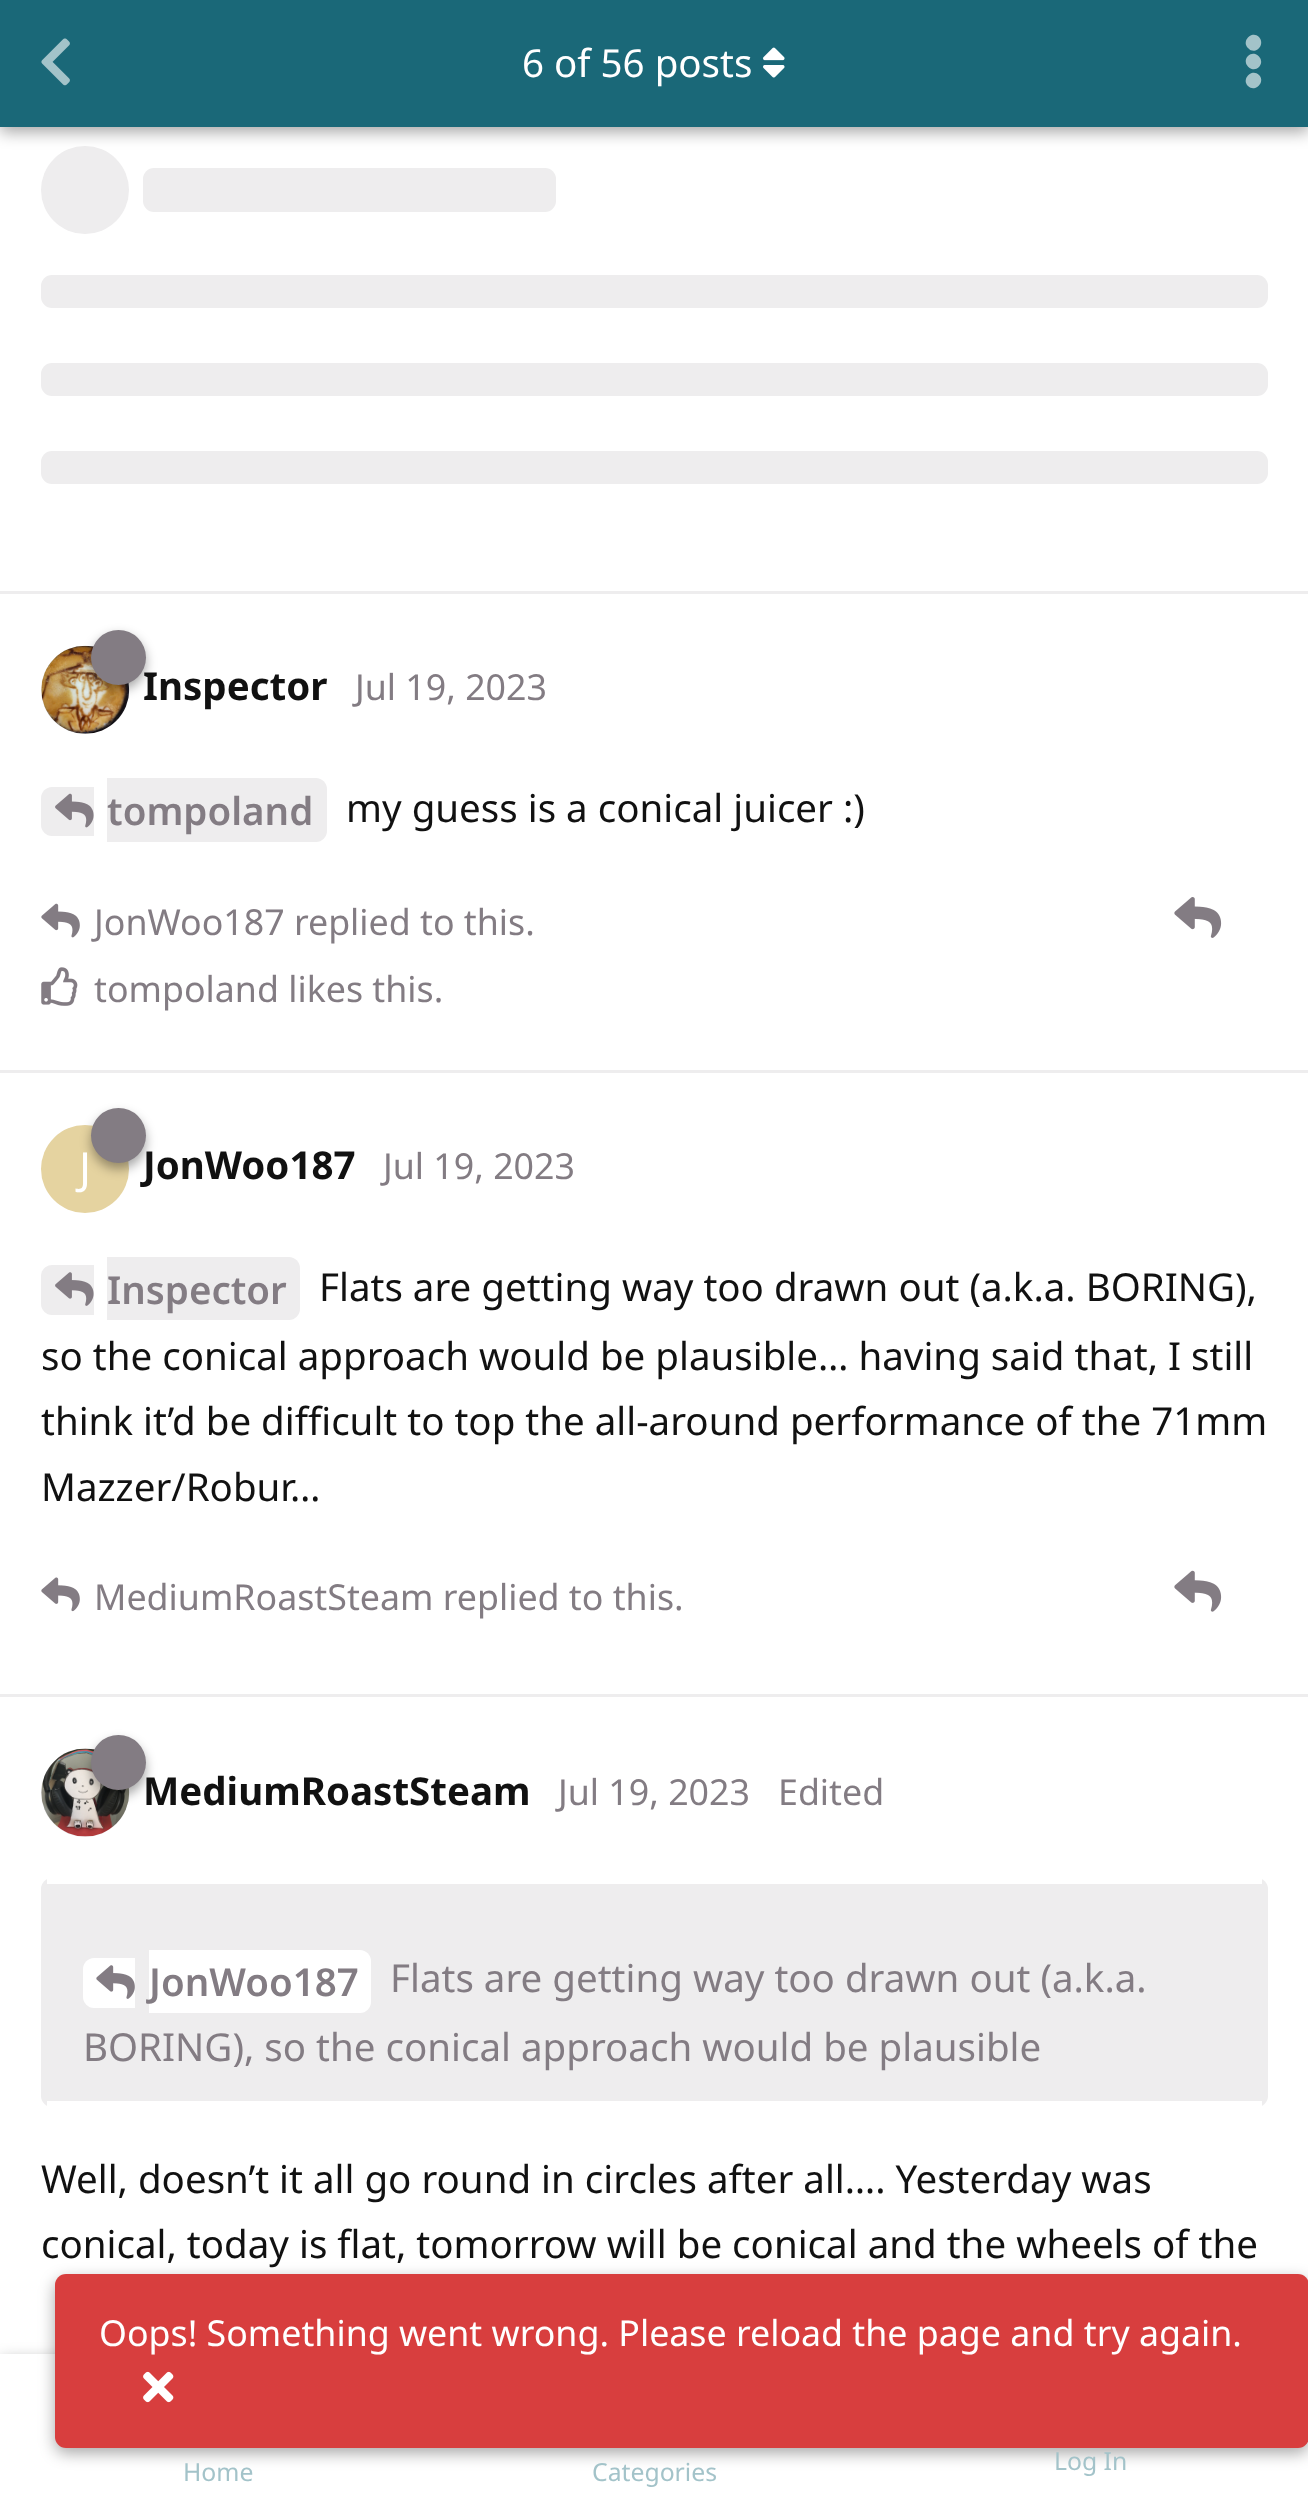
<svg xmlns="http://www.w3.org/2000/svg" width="1308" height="2501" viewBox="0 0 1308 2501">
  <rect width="100%" height="100%" fill="#fff"/>
  <circle cx="85" cy="190" r="44" fill="#eeedee"/>
  <path d="M0 6h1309v126H0z" fill="#00000059" filter="blur(8px)"/>
  <path d="M0 0h1308v127H0z" fill="#1a6878"/>
  <image x="41" y="38" width="29" height="48" href="img/1.png"/>
  <image x="763" y="47" width="22" height="31" href="img/2.png"/>
  <path d="M1248 56C1255 49 1266 60 1259 67C1252 74 1241 63 1248 56ZM1248 48C1241 41 1252 30 1259 37C1266 45 1255 56 1248 48ZM1248 86C1241 79 1252 68 1259 75C1266 82 1255 93 1248 86Z" fill="#a3c3c9"/>
  <path d="M0 591h1308v3H0z" fill="#eeedee"/>
  <rect x="143" y="168" width="413" height="44" rx="11" fill="#eeedee"/>
  <rect x="41" y="275" width="1227" height="33" rx="11" fill="#eeedee"/>
  <rect x="41" y="363" width="1227" height="33" rx="11" fill="#eeedee"/>
  <rect x="41" y="451" width="1227" height="33" rx="11" fill="#eeedee"/>
  <path d="M0 1070h1308v3H0z" fill="#eeedee"/>
  <circle cx="85" cy="690" r="44" fill="#eeedee"/>
  <image x="41" y="645" width="89" height="89" href="img/3.png"/>
  <rect x="91" y="635" width="55" height="55" rx="27.5" fill="#00000059" filter="blur(5.5px)"/>
  <path d="M52 787H94V836H52C46 836 41 831 41 825V798C41 792 46 787 52 787Z" fill="#eeedee"/>
  <path d="M107 778H316C322 778 327 783 327 789V831C327 837 322 842 316 842H107Z" fill="#eeedee"/>
  <image x="55" y="793" width="39" height="35" href="img/4.png"/>
  <image x="41" y="903" width="39" height="35" href="img/5.png"/>
  <image x="41" y="967" width="37" height="39" href="img/6.png"/>
  <image x="1174" y="897" width="48" height="41" href="img/7.png"/>
  <path d="M0 1694h1308v3H0z" fill="#eeedee"/>
  <circle cx="85" cy="1169" r="44" fill="#e5d3a0"/>
  <rect x="91" y="1114" width="55" height="55" rx="27.5" fill="#00000059" filter="blur(5.5px)"/>
  <path d="M52 1265H94V1315H52C46 1315 41 1310 41 1304V1276C41 1270 46 1265 52 1265Z" fill="#eeedee"/>
  <path d="M107 1257H289C295 1257 300 1262 300 1268V1309C300 1315 295 1320 289 1320H107Z" fill="#eeedee"/>
  <image x="55" y="1272" width="39" height="34" href="img/8.png"/>
  <image x="41" y="1577" width="39" height="35" href="img/9.png"/>
  <image x="1174" y="1570" width="48" height="42" href="img/10.png"/>
  <circle cx="85" cy="1793" r="44" fill="#eeedee"/>
  <image x="41" y="1748" width="89" height="89" href="img/11.png"/>
  <rect x="91" y="1741" width="55" height="55" rx="27.5" fill="#00000059" filter="blur(5.5px)"/>
  <circle cx="118.5" cy="1762.5" r="27.5" fill="#837c83"/>
  <rect x="41" y="1878" width="1227" height="229" rx="11" fill="#eeedee"/>
  <path d="M47 1878h1215v6H47z" fill="#fff"/>
  <path d="M47 2101h1215v6H47z" fill="#fff"/>
  <path d="M94 1958H135V2008H94C88 2008 83 2003 83 1997V1969C83 1963 88 1958 94 1958Z" fill="#fff"/>
  <path d="M149 1950H360C366 1950 371 1955 371 1961V2002C371 2008 366 2013 360 2013H149Z" fill="#fff"/>
  <image x="96" y="1965" width="39" height="34" href="img/12.png"/>
  <path d="M0 2360h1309v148H0z" fill="#00000059" filter="blur(8px)"/>
  <path d="M0 2354h1308v147H0z" fill="#fff"/>
  <rect x="55" y="2280" width="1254" height="173" rx="11" fill="#00000059" filter="blur(8px)"/>
  <rect x="55" y="2274" width="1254" height="174" rx="11" fill="#d83e3e"/>
  <image x="143" y="2371" width="31" height="32" href="img/13.png"/>
  <text x="522" y="77" font-family="Noto Sans" font-size="38.5" fill="#fff">6 of 56 posts</text>
  <text x="143" y="700" font-family="Noto Sans" font-size="38.5" font-weight="bold" fill="#111">Inspector</text>
  <circle cx="118.5" cy="657.5" r="27.5" fill="#837c83"/>
  <text x="355" y="700" font-family="Noto Sans" font-size="35.75" fill="#837c83">Jul 19, 2023</text>
  <text x="107" y="825" font-family="Noto Sans" font-size="38.5" font-weight="600" fill="#837c83">tompoland</text>
  <text x="346" y="822" font-family="Noto Sans" font-size="38.5" fill="#111">my guess is a conical juicer :)</text>
  <g font-family="Noto Sans" font-size="35.75" fill="#837c83">
    <text x="94" y="935">JonWoo187 replied to this.</text>
    <text x="94" y="1002">tompoland likes this.</text>
  </g>
  <text x="79" y="1184" font-family="Noto Sans" font-size="44" fill="#fff">J</text>
  <text x="143" y="1179" font-family="Noto Sans" font-size="38.5" font-weight="bold" fill="#111">JonWoo187</text>
  <circle cx="118.5" cy="1135.5" r="27.5" fill="#837c83"/>
  <text x="383" y="1179" font-family="Noto Sans" font-size="35.75" fill="#837c83">Jul 19, 2023</text>
  <text x="107" y="1304" font-family="Noto Sans" font-size="38.5" font-weight="600" fill="#837c83">Inspector</text>
  <g font-family="Noto Sans" font-size="38.5" fill="#111">
    <text x="319" y="1301">Flats are getting way too drawn out (a.k.a. BORING),</text>
    <text x="41" y="1370">so the conical approach would be plausible… having said that, I still</text>
    <text x="41" y="1435">think it’d be difficult to top the all-around performance of the 71mm</text>
    <text x="41" y="1501">Mazzer/Robur…</text>
  </g>
  <text x="94" y="1610" font-family="Noto Sans" font-size="35.75" fill="#837c83">MediumRoastSteam replied to this.</text>
  <text x="143" y="1805" font-family="Noto Sans" font-size="38.5" font-weight="bold" fill="#111">MediumRoastSteam</text>
  <g font-family="Noto Sans" font-size="35.75" fill="#837c83">
    <text x="558" y="1805">Jul 19, 2023</text>
    <text x="778" y="1805">Edited</text>
  </g>
  <text x="149" y="1996" font-family="Noto Sans" font-size="38.5" font-weight="600" fill="#837c83">JonWoo187</text>
  <g font-family="Noto Sans" font-size="38.5" fill="#837c83">
    <text x="390" y="1992">Flats are getting way too drawn out (a.k.a.</text>
    <text x="83" y="2061">BORING), so the conical approach would be plausible</text>
  </g>
  <g font-family="Noto Sans" font-size="38.5" fill="#111">
    <text x="41" y="2193">Well, doesn’t it all go round in circles after all…. Yesterday was</text>
    <text x="41" y="2258">conical, today is flat, tomorrow will be conical and the wheels of the</text>
  </g>
  <text x="99" y="2346" font-family="Noto Sans" font-size="35.75" fill="#fff">Oops! Something went wrong. Please reload the page and try again.</text>
  <g font-family="Noto Sans" font-size="24.75" fill="#a3c3c9">
    <text x="183" y="2481">Home</text>
    <text x="592" y="2481">Categories</text>
    <text x="1054" y="2470">Log In</text>
  </g>
</svg>
